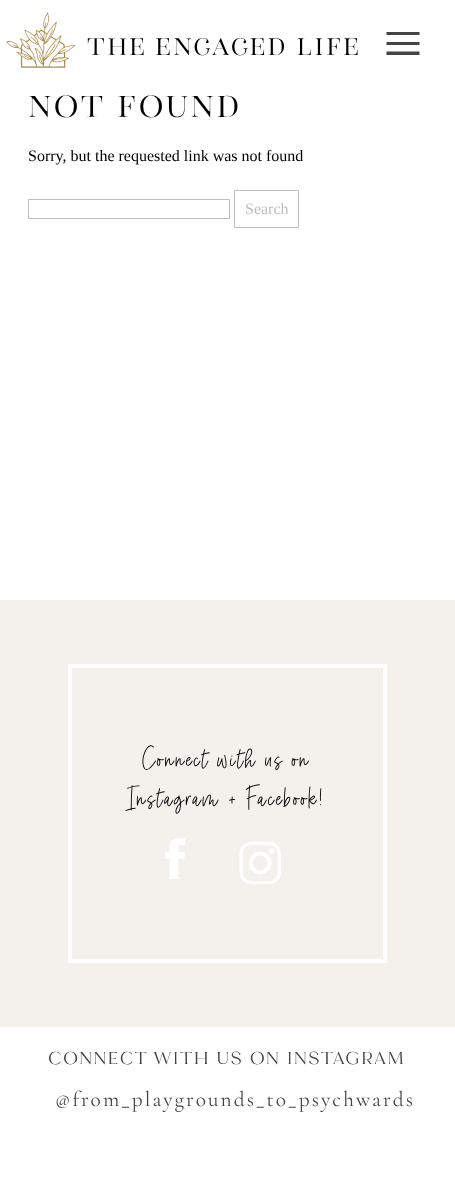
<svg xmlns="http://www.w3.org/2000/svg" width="455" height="1187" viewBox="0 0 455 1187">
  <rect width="100%" height="100%" fill="#fff"/>
  <image x="6" y="12" width="70" height="56" href="img/1.png"/>
  <path d="M386.5 42H419.5V45H386.5ZM386.5 32H419.5V35H386.5ZM386.5 51.5H419.5V55H386.5Z" fill="#444"/>
  <path d="M28.5 199.5h201v19H28.5z" fill="none" stroke="#bdbdbd"/>
  <path d="M234.5 190.5h64v37H234.5z" fill="none" stroke="#bebebe"/>
  <path d="M0 600h455v427H0z" fill="#f4f1ed"/>
  <path d="M70 666h315v295H70z" fill="none" stroke="#fff" stroke-width="4"/>
  <image x="164" y="838" width="21" height="41" href="img/2.png"/>
  <image x="239" y="841" width="42" height="43" href="img/3.png"/>
  <text x="87" y="55" font-family="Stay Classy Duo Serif" font-size="28.5" letter-spacing="2.8" fill="#000">THE ENGAGED LIFE</text>
  <text x="28" y="117" font-family="Stay Classy Duo Serif" font-size="36" letter-spacing="3.5" fill="#000">Not Found</text>
  <text x="28" y="161" font-family="Liberation Serif" font-size="16" fill="#000">Sorry, but the requested link was not found</text>
  <text x="245" y="214" font-family="Liberation Serif" font-size="16" fill="#bebebe">Search</text>
  <g font-family="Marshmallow" font-size="21.3" letter-spacing="2.1" fill="#000">
    <text x="142" y="765">Connect with us on</text>
    <text x="128" y="804">Instagram + Facebook!</text>
  </g>
  <text x="48" y="1064" font-family="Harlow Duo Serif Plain" font-size="19.9" letter-spacing="2" fill="#444">CONNECT WITH US ON INSTAGRAM</text>
  <text x="55" y="1106" font-family="Cormorant Garamond" font-size="21.3" font-weight="300" letter-spacing="2.1" fill="#444">@from_playgrounds_to_psychwards</text>
</svg>
